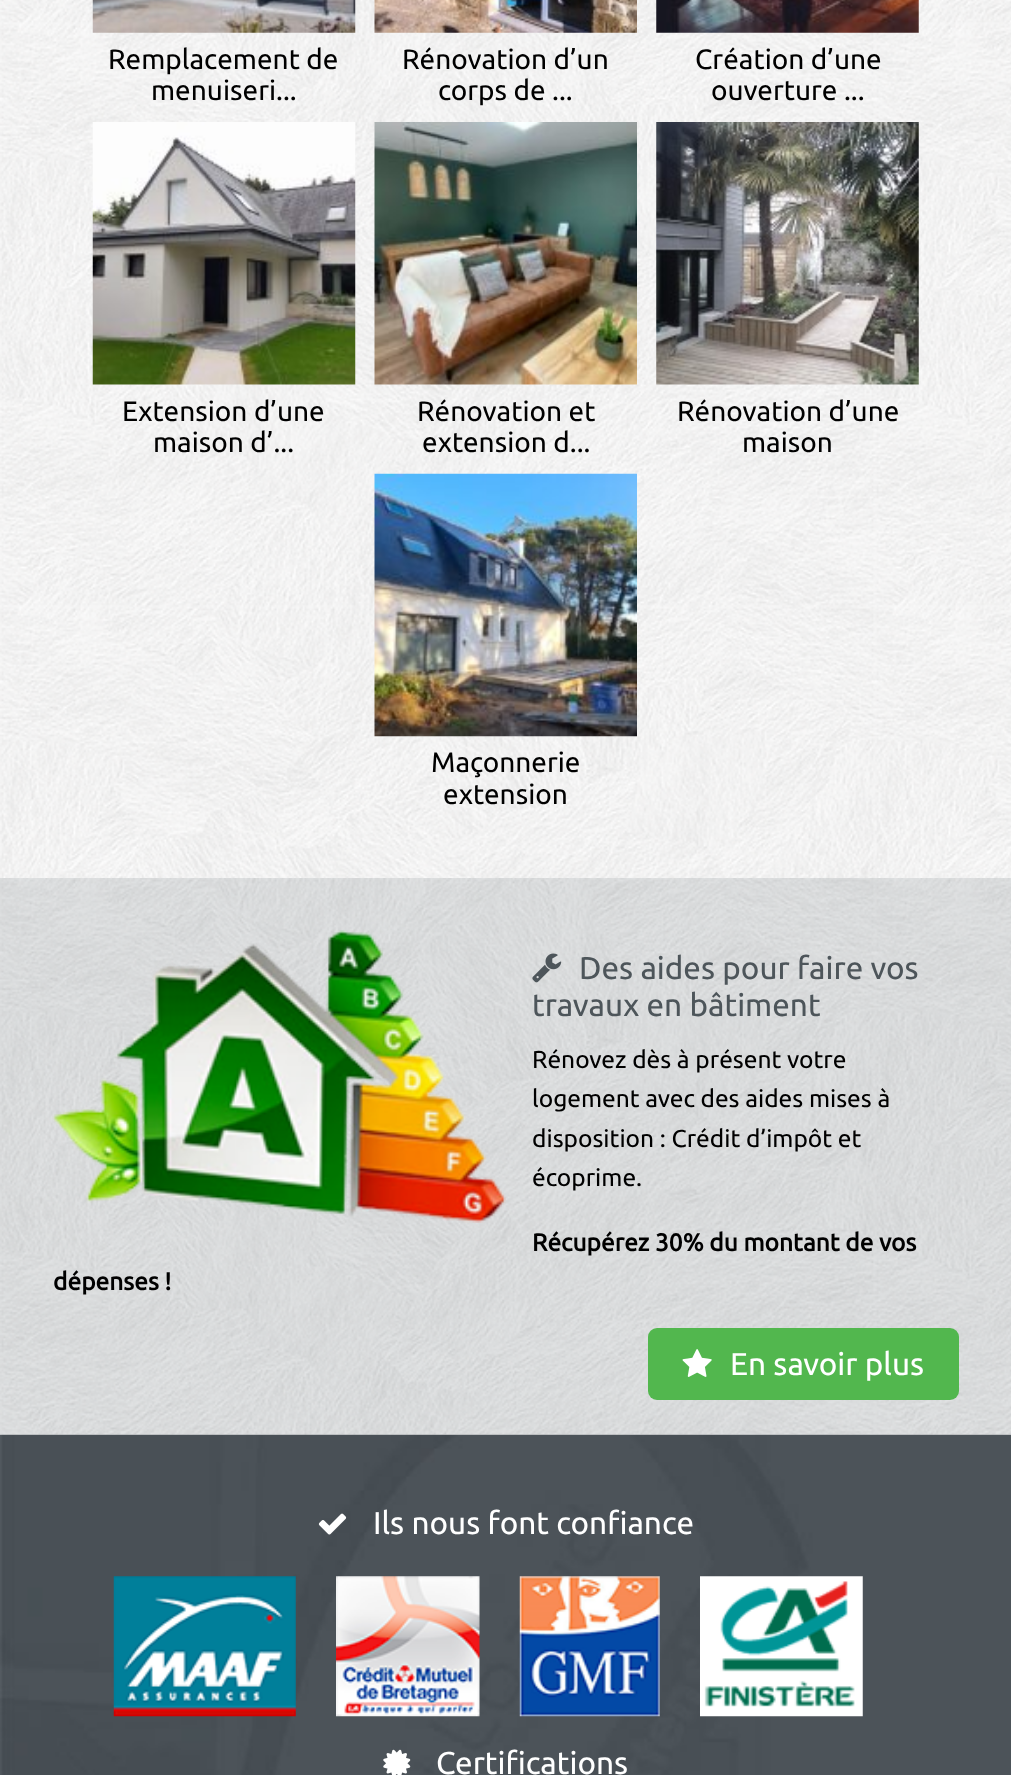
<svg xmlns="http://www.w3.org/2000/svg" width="1011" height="1775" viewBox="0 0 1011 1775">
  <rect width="100%" height="100%" fill="#fff"/>
  <image x="0" y="0" width="1011" height="1435" href="img/1.png"/>
  <image x="92" y="0" width="264" height="33" href="img/2.png"/>
  <image x="374" y="0" width="263" height="33" href="img/3.png"/>
  <image x="656" y="0" width="263" height="33" href="img/4.png"/>
  <image x="92" y="122" width="264" height="263" href="img/5.png"/>
  <image x="374" y="122" width="263" height="263" href="img/6.png"/>
  <image x="656" y="122" width="263" height="263" href="img/7.png"/>
  <image x="374" y="473" width="263" height="264" href="img/8.png"/>
  <image x="0" y="1434" width="1011" height="341" href="img/13.png"/>
  <image x="0" y="878" width="1011" height="557" href="img/9.png"/>
  <image x="52" y="930" width="454" height="293" href="img/10.png"/>
  <image x="532" y="953" width="30" height="30" href="img/11.png"/>
  <rect x="648" y="1328" width="311" height="72" rx="9" fill="#52b74e"/>
  <image x="682" y="1349" width="30" height="28" href="img/12.png"/>
  <image x="318" y="1513" width="29" height="22" href="img/14.png"/>
  <image x="113" y="1576" width="183" height="141" href="img/15.png"/>
  <image x="336" y="1576" width="144" height="141" href="img/16.png"/>
  <image x="519" y="1576" width="141" height="141" href="img/17.png"/>
  <image x="700" y="1576" width="163" height="141" href="img/18.png"/>
  <image x="383" y="1749" width="28" height="26" href="img/19.png"/>
  <g font-family="Ubuntu" font-size="28" fill="#000">
    <text x="108" y="69">Remplacement de</text>
    <text x="151" y="100">menuiseri...</text>
    <text x="402" y="69">Rénovation d’un</text>
    <text x="438" y="100">corps de ...</text>
    <text x="695" y="69">Création d’une</text>
    <text x="711" y="100">ouverture ...</text>
    <text x="122" y="421">Extension d’une</text>
    <text x="153" y="452">maison d’...</text>
    <text x="417" y="421">Rénovation et</text>
    <text x="422" y="452">extension d...</text>
    <text x="677" y="421">Rénovation d’une</text>
    <text x="742" y="452">maison</text>
    <text x="431" y="772">Maçonnerie</text>
    <text x="443" y="804">extension</text>
  </g>
  <g font-family="Ubuntu" font-size="31.5" fill="#4d555a">
    <text x="579" y="979">Des aides pour faire vos</text>
    <text x="532" y="1016">travaux en bâtiment</text>
  </g>
  <g font-family="Ubuntu" font-size="24.5" fill="#000">
    <text x="532" y="1068">Rénovez dès à présent votre</text>
    <text x="532" y="1107">logement avec des aides mises à</text>
    <text x="532" y="1147">disposition : Crédit d’impôt et</text>
    <text x="532" y="1186">écoprime.</text>
  </g>
  <g font-family="Ubuntu" font-size="24.5" font-weight="bold" fill="#000">
    <text x="532" y="1251">Récupérez 30% du montant de vos</text>
    <text x="53" y="1290">dépenses !</text>
  </g>
  <g font-family="Ubuntu" font-size="31.5" fill="#fff">
    <text x="730" y="1375">En savoir plus</text>
    <text x="373" y="1534">Ils nous font confiance</text>
    <text x="436" y="1774">Certifications</text>
  </g>
</svg>
